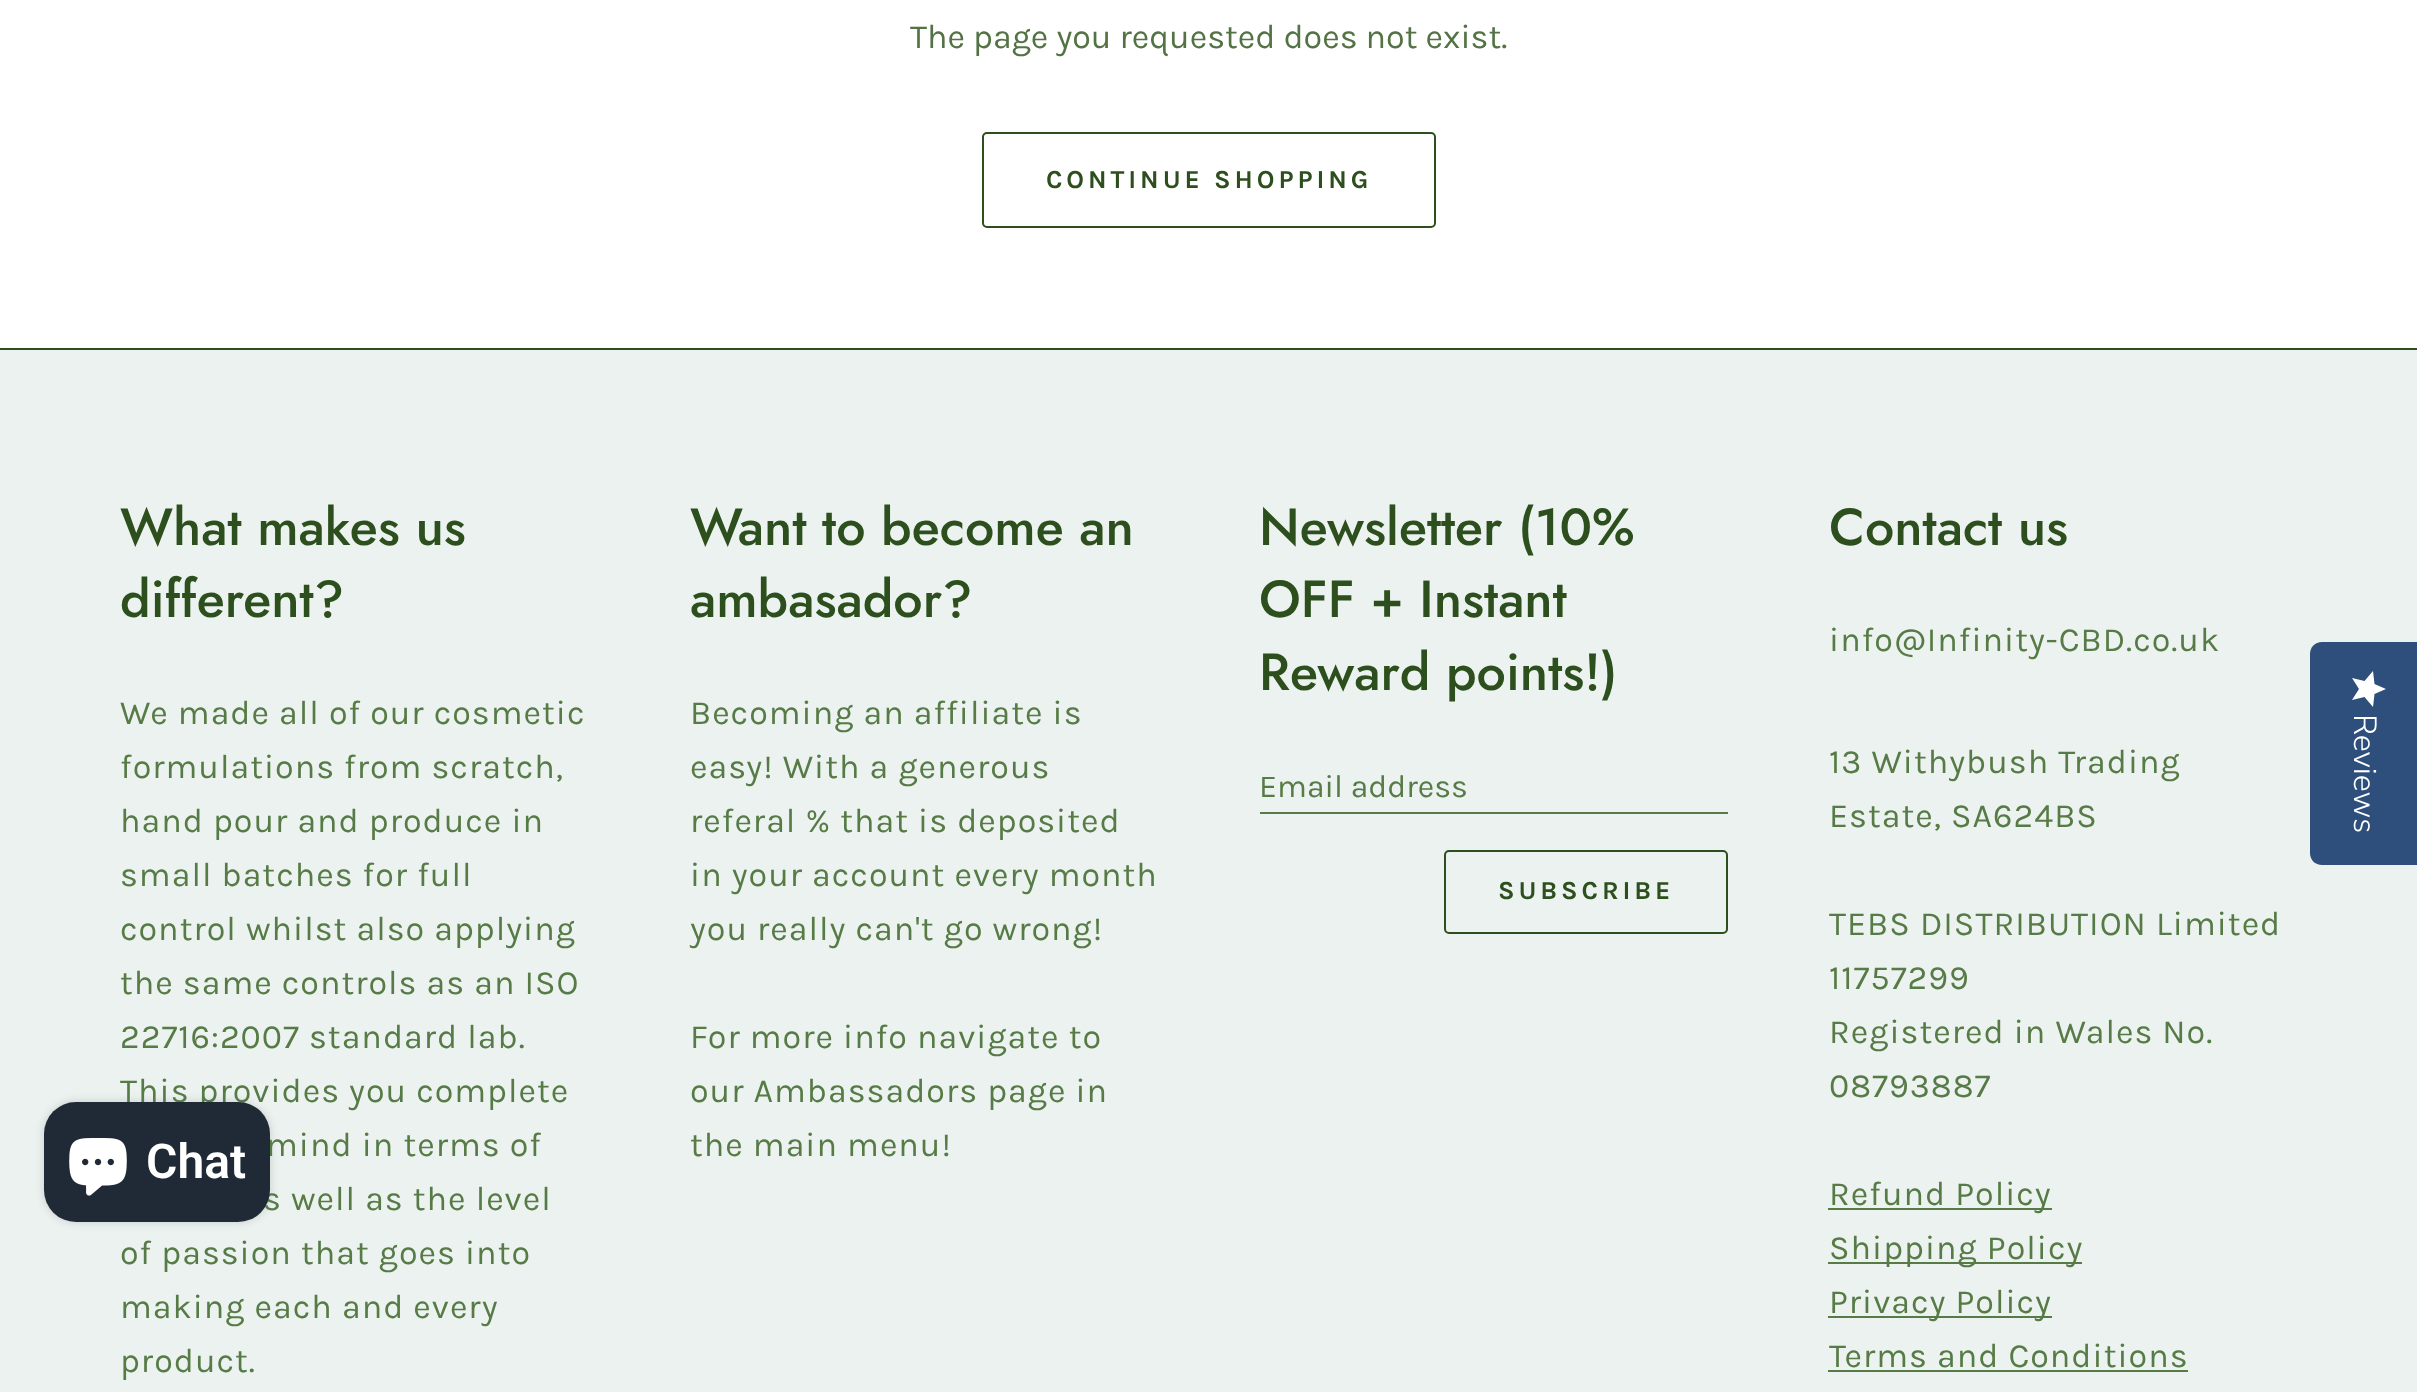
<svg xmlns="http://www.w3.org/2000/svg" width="2417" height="1392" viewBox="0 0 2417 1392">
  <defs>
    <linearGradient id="g1" gradientUnits="userSpaceOnUse" x1="2386" y1="671" x2="2386" y2="707"><stop offset="1" stop-color="#fff"/><stop offset="1" stop-color="#eaeaea"/></linearGradient>
  </defs>
  <rect width="100%" height="100%" fill="#fff"/>
  <rect x="983" y="133" width="452" height="94" rx="4" fill="none" stroke="#2d4f1e" stroke-width="2"/>
  <path d="M0 350h2417v1042H0z" fill="#ebf2ef"/>
  <path d="M0 348h2417v2H0z" fill="#2d4f1e"/>
  <path d="M1260 812h468v2H1260z" fill="#577b46"/>
  <rect x="1445" y="851" width="282" height="82" rx="4" fill="none" stroke="#2d4f1e" stroke-width="2"/>
  <path d="M1828 1208h224v2H1828z" fill="#577b46"/>
  <path d="M1828 1262h254v2H1828z" fill="#577b46"/>
  <path d="M1828 1316h224v2H1828z" fill="#577b46"/>
  <path d="M1828 1370h360v2H1828z" fill="#577b46"/>
  <path d="M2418 642V865H2322C2315 865 2310 860 2310 853V654C2310 647 2315 642 2322 642Z" fill="#2e4f7c"/>
  <path d="M2359 689L2352 700L2364.5 697L2373 707L2374.5 694L2386 689L2374.5 684L2373 671L2364.5 681L2352 678Z" fill="url(#g1)"/>
  <rect x="44" y="1102" width="226" height="120" rx="32" fill="#00000026" filter="blur(5px)"/>
  <text x="910" y="48" font-family="Karla" font-size="34" fill="#537344">The page you requested does not exist.</text>
  <text x="1046" y="188" font-family="Karla" font-size="26" font-weight="bold" letter-spacing="3.9" fill="#2d4f1e">CONTINUE SHOPPING</text>
  <g font-family="Jost" font-size="52" font-weight="500" fill="#2d4f1e">
    <text x="120" y="545">What makes us</text>
    <text x="120" y="617">different?</text>
  </g>
  <g font-family="Karla" font-size="34" letter-spacing="1" fill="#577b46">
    <text x="120" y="724">We made all of our cosmetic</text>
    <text x="120" y="778">formulations from scratch,</text>
    <text x="120" y="832">hand pour and produce in</text>
    <text x="120" y="886">small batches for full</text>
    <text x="120" y="940">control whilst also applying</text>
    <text x="120" y="994">the same controls as an ISO</text>
    <text x="120" y="1048">22716:2007 standard lab.</text>
    <text x="120" y="1102">This provides you complete</text>
    <text x="266" y="1156">mind in terms of</text>
    <text x="263" y="1210">s well as the level</text>
    <text x="120" y="1264">of passion that goes into</text>
    <text x="120" y="1318">making each and every</text>
    <text x="120" y="1372">product.</text>
  </g>
  <g font-family="Jost" font-size="52" font-weight="500" fill="#2d4f1e">
    <text x="690" y="545">Want to become an</text>
    <text x="690" y="617">ambasador?</text>
  </g>
  <g font-family="Karla" font-size="34" letter-spacing="1" fill="#577b46">
    <text x="690" y="724">Becoming an affiliate is</text>
    <text x="690" y="778">easy! With a generous</text>
    <text x="690" y="832">referal % that is deposited</text>
    <text x="690" y="886">in your account every month</text>
    <text x="690" y="940">you really can't go wrong!</text>
    <text x="690" y="1048">For more info navigate to</text>
    <text x="690" y="1102">our Ambassadors page in</text>
    <text x="690" y="1156">the main menu!</text>
  </g>
  <g font-family="Jost" font-size="52" font-weight="500" fill="#2d4f1e">
    <text x="1259" y="545">Newsletter (10%</text>
    <text x="1259" y="617">OFF + Instant</text>
    <text x="1259" y="690">Reward points!)</text>
  </g>
  <text x="1259" y="797" font-family="Karla" font-size="32" fill="#577b46">Email address</text>
  <text x="1498" y="899" font-family="Karla" font-size="26" font-weight="bold" letter-spacing="3.9" fill="#2d4f1e">SUBSCRIBE</text>
  <text x="1829" y="545" font-family="Jost" font-size="52" font-weight="500" fill="#2d4f1e">Contact us</text>
  <g font-family="Karla" font-size="34" letter-spacing="1" fill="#577b46">
    <text x="1829" y="651">info@Infinity-CBD.co.uk</text>
    <text x="1829" y="773">13 Withybush Trading</text>
    <text x="1829" y="827">Estate, SA624BS</text>
    <text x="1829" y="935">TEBS DISTRIBUTION Limited</text>
    <text x="1829" y="989">11757299</text>
    <text x="1829" y="1043">Registered in Wales No.</text>
    <text x="1829" y="1097">08793887</text>
    <text x="1829" y="1205">Refund Policy</text>
    <text x="1829" y="1259">Shipping Policy</text>
    <text x="1829" y="1313">Privacy Policy</text>
    <text x="1829" y="1367">Terms and Conditions</text>
  </g>
  <text x="2354" y="714" transform="rotate(90 2354 714)" font-family="Nunito Sans" font-size="32" font-weight="300" fill="#fff">Reviews</text>
  <rect x="44" y="1102" width="226" height="120" rx="32" fill="#202a36"/>
  <image x="69" y="1138" width="58" height="58" href="img/1.png"/>
  <text x="146" y="1178" font-family="Roboto" font-size="48" font-weight="600" fill="#fff">Chat</text>
</svg>
